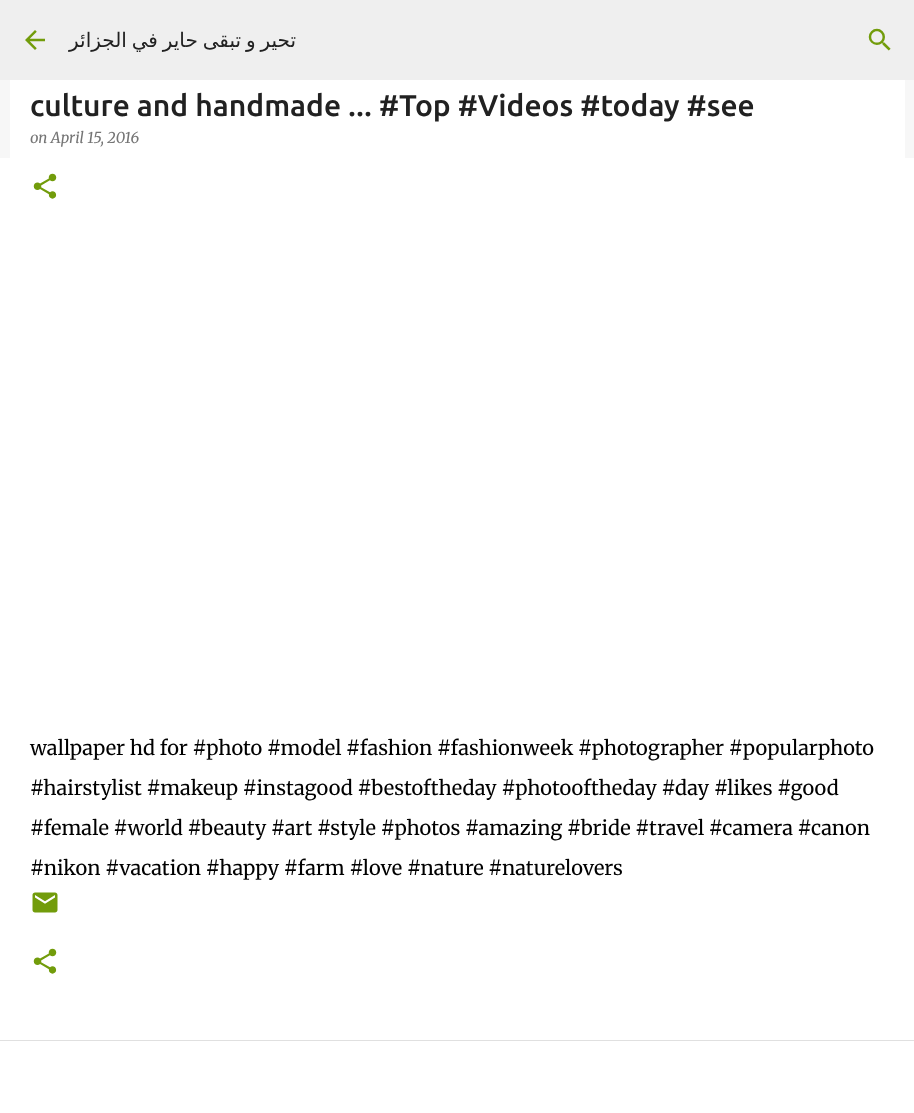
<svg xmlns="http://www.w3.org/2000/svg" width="914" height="1113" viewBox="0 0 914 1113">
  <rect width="100%" height="100%" fill="#f7f7f7"/>
  <path d="M0 0h914v80H0z" fill="#efefef"/>
  <image x="25" y="30" width="20" height="20" href="img/1.png"/>
  <image x="868" y="28" width="23" height="23" href="img/2.png"/>
  <path d="M0 158h914v882H0z" fill="#fff"/>
  <path d="M10 80h895v78H10z" fill="#fff"/>
  <image x="33" y="173" width="24" height="26" href="img/3.png"/>
  <image x="32" y="892" width="26" height="21" href="img/4.png"/>
  <image x="33" y="948" width="24" height="26" href="img/3.png"/>
  <path d="M0 1041h914v72H0z" fill="#fff"/>
  <path d="M0 1040h914v1H0z" fill="#e0e0e0"/>
  <text x="296" y="47" word-spacing="-1.5" font-family="DejaVu Sans" font-size="20" direction="rtl" fill="#212121">تحير و تبقى حاير في الجزائر</text>
  <text x="30" y="116" font-family="Ubuntu" font-size="30" font-weight="500" fill="#212121">culture and handmade ... #Top #Videos #today #see</text>
  <text x="30" y="143" font-family="Merriweather" font-size="15" font-style="italic" fill="#757575">on April 15, 2016</text>
  <g font-family="Merriweather" font-size="20" font-weight="300" fill="#000">
    <text x="30" y="755">wallpaper hd for #photo #model #fashion #fashionweek #photographer #popularphoto</text>
    <text x="30" y="795">#hairstylist #makeup #instagood #bestoftheday #photooftheday #day #likes #good</text>
    <text x="30" y="835">#female #world #beauty #art #style #photos #amazing #bride #travel #camera #canon</text>
    <text x="30" y="875">#nikon #vacation #happy #farm #love #nature #naturelovers</text>
  </g>
</svg>
